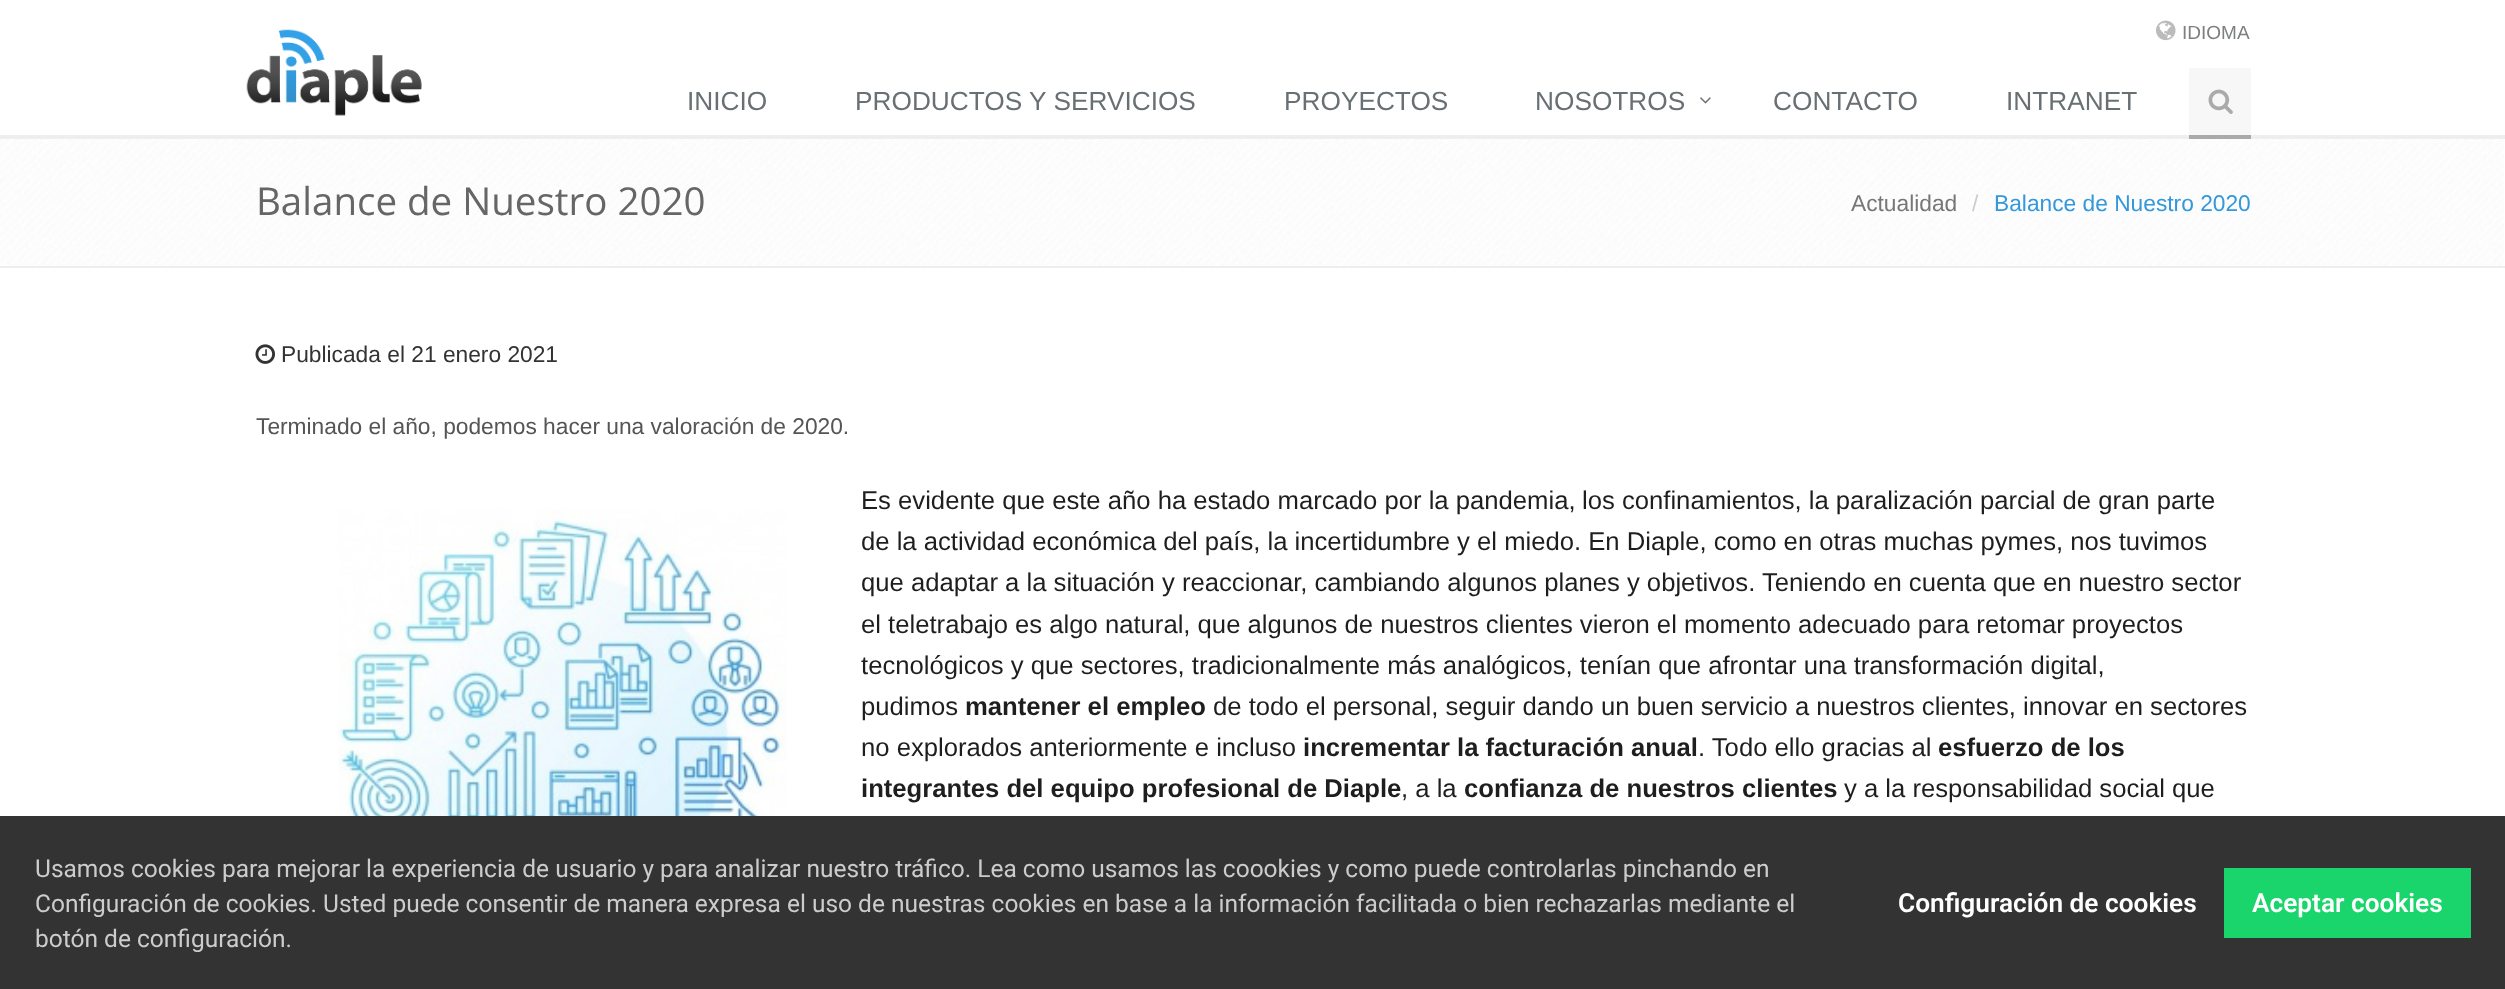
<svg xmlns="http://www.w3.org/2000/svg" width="2505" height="989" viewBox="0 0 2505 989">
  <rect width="100%" height="100%" fill="#fff"/>
  <path d="M0 135h2505v4H0z" fill="#eee"/>
  <image x="2156" y="20" width="20" height="21" href="img/1.png"/>
  <image x="246" y="29" width="176" height="87" href="img/2.png"/>
  <image x="1700" y="97" width="11" height="7" href="img/3.png"/>
  <path d="M2189 68h62v67H2189z" fill="#f7f7f7"/>
  <path d="M2189 135h62v4H2189z" fill="#aaa"/>
  <image x="2208" y="89" width="25" height="25" href="img/4.png"/>
  <image x="0" y="139" width="2504" height="127" href="img/5.png"/>
  <path d="M0 266h2505v2H0z" fill="#eee"/>
  <image x="255" y="344" width="20" height="20" href="img/6.png"/>
  <image x="338" y="509" width="449" height="307" href="img/7.png"/>
  <path d="M0 816h2505v173H0z" fill="#333"/>
  <path d="M2224 868h247v70H2224z" fill="#1ad56c"/>
  <text x="2182" y="39" font-family="Liberation Sans" font-size="19" fill="#7c8082">IDIOMA</text>
  <g font-family="Liberation Sans" font-size="26.25" fill="#687074">
    <text x="687" y="110">INICIO</text>
    <text x="855" y="110">PRODUCTOS Y SERVICIOS</text>
    <text x="1284" y="110">PROYECTOS</text>
    <text x="1535" y="110">NOSOTROS</text>
    <text x="1773" y="110">CONTACTO</text>
    <text x="2006" y="110">INTRANET</text>
  </g>
  <text x="256" y="215" font-family="Open Sans" font-size="38.5" fill="#666">Balance de Nuestro 2020</text>
  <text x="1851" y="211" font-family="Liberation Sans" font-size="22.75" fill="#777">Actualidad</text>
  <text x="1972" y="211" font-family="Liberation Sans" font-size="22.75" fill="#ccc">/</text>
  <text x="1994" y="211" font-family="Liberation Sans" font-size="22.75" fill="#3498db">Balance de Nuestro 2020</text>
  <text x="281" y="362" font-family="Liberation Sans" font-size="22.75" fill="#333">Publicada el 21 enero 2021</text>
  <text x="256" y="434" font-family="Liberation Sans" font-size="22.75" fill="#555">Terminado el año, podemos hacer una valoración de 2020.</text>
  <g font-family="Liberation Sans" font-size="25.67" fill="#1e1e1e">
    <text x="861" y="509">Es evidente que este año ha estado marcado por la pandemia,</text>
    <text x="1582" y="509">los confinamientos, la paralización parcial de gran parte</text>
    <text x="861" y="550">de la actividad económica del país, la incertidumbre y el miedo</text>
    <text x="1574" y="550">. En Diaple, como en otras muchas pymes, nos tuvimos</text>
    <text x="861" y="591">que adaptar a la situación y reaccionar, cambiando algunos planes y objetivos. Teniendo en cuenta que en nuestro sector</text>
    <text x="861" y="633">el teletrabajo es algo natural, que algunos de nuestros clientes vieron el momento adecuado para retomar proyectos</text>
    <text x="861" y="674">tecnológicos y que sectores, tradicionalmente más analógicos, tenían que afrontar una transformación digital,</text>
    <text x="861" y="715">pudimos</text>
  </g>
  <text x="965" y="715" font-family="Liberation Sans" font-size="25.67" font-weight="bold" fill="#1e1e1e">mantener el empleo</text>
  <g font-family="Liberation Sans" font-size="25.67" fill="#1e1e1e">
    <text x="1213" y="715">de todo el personal, seguir dando un buen servicio a nuestros clientes, innovar en sectores</text>
    <text x="861" y="756">no explorados anteriormente e incluso</text>
  </g>
  <text x="1303" y="756" font-family="Liberation Sans" font-size="25.67" font-weight="bold" fill="#1e1e1e">incrementar la facturación anual</text>
  <text x="1698" y="756" font-family="Liberation Sans" font-size="25.67" fill="#1e1e1e">. Todo ello gracias al</text>
  <g font-family="Liberation Sans" font-size="25.67" font-weight="bold" fill="#1e1e1e">
    <text x="1938" y="756">esfuerzo de los</text>
    <text x="861" y="797">integrantes del equipo profesional de Diaple</text>
  </g>
  <text x="1401" y="797" font-family="Liberation Sans" font-size="25.67" fill="#1e1e1e">, a la</text>
  <text x="1464" y="797" font-family="Liberation Sans" font-size="25.67" font-weight="bold" fill="#1e1e1e">confianza de nuestros clientes</text>
  <text x="1844" y="797" font-family="Liberation Sans" font-size="25.67" fill="#1e1e1e">y a la responsabilidad social que</text>
  <g font-family="Roboto" font-size="24.5" fill="#ccc">
    <text x="35" y="877">Usamos cookies para mejorar la experiencia de usuario y para analizar nuestro tráfico. Lea como usamos las coookies y como puede controlarlas pinchando en</text>
    <text x="35" y="912">Configuración de cookies. Usted puede consentir de manera expresa el uso de nuestras cookies en base a la información facilitada o bien rechazarlas mediante el</text>
    <text x="35" y="947">botón de configuración.</text>
  </g>
  <g font-family="Roboto" font-size="26.25" font-weight="600" fill="#fff">
    <text x="1898" y="912">Configuración de cookies</text>
    <text x="2252" y="912">Aceptar cookies</text>
  </g>
</svg>
